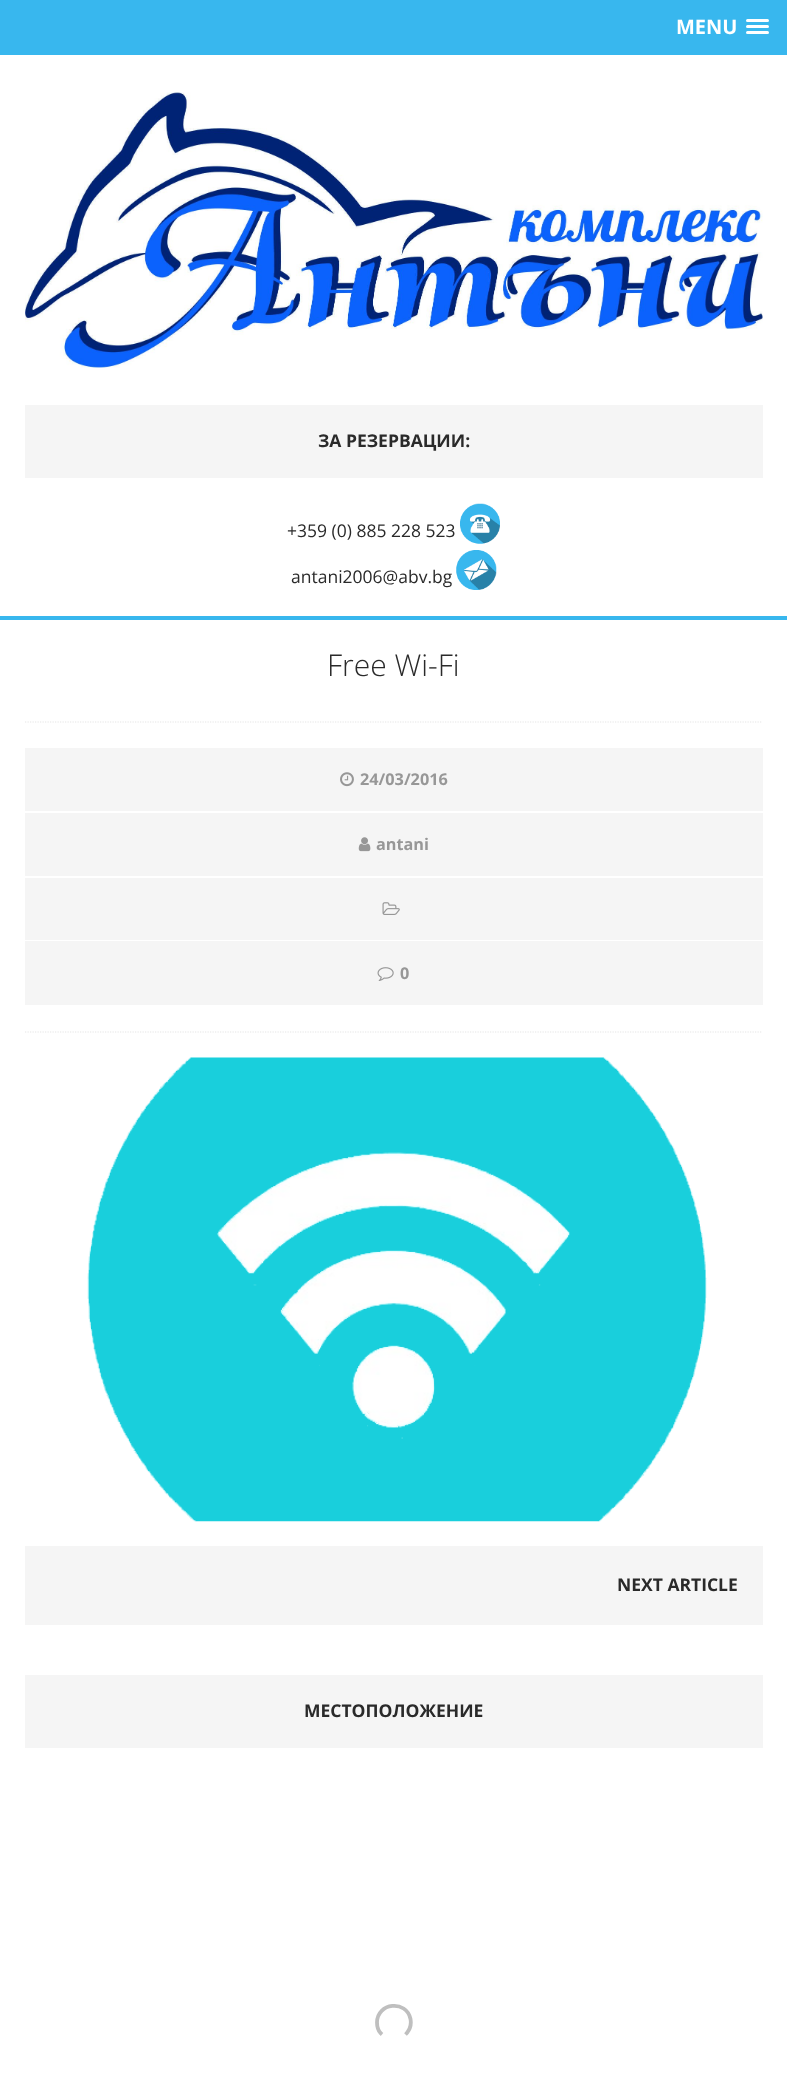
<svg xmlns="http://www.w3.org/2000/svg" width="787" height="2100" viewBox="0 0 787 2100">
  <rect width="100%" height="100%" fill="#38b7ee"/>
  <rect x="746" y="19" width="23" height="3" rx="1.5" fill="#fff"/>
  <rect x="746" y="25" width="23" height="3" rx="1.5" fill="#fff"/>
  <rect x="746" y="31" width="23" height="3" rx="1.5" fill="#fff"/>
  <path d="M0 55h787v561H0z" fill="#fff"/>
  <image x="25" y="92" width="738" height="276" href="img/1.png"/>
  <path d="M25 405h738v73H25z" fill="#f5f5f5"/>
  <image x="460" y="503" width="40" height="41" href="img/2.png"/>
  <image x="456" y="550" width="41" height="40" href="img/3.png"/>
  <path d="M0 620h787v1480H0z" fill="#fff"/>
  <path d="M25 722H762.5" fill="none" stroke="#e5e5e5" stroke-width="1.2" stroke-dasharray="1.25 1.25"/>
  <path d="M25 1032H762.5" fill="none" stroke="#e5e5e5" stroke-width="1.2" stroke-dasharray="1.25 1.25"/>
  <path d="M25 748h738v63H25z" fill="#f5f5f5"/>
  <image x="340" y="772" width="14" height="15" href="img/4.png"/>
  <path d="M25 813h738v63H25z" fill="#f5f5f5"/>
  <image x="358" y="837" width="13" height="15" href="img/5.png"/>
  <path d="M25 878h738v62H25z" fill="#f5f5f5"/>
  <image x="382" y="902" width="18" height="13" href="img/6.png"/>
  <path d="M25 941h738v64H25z" fill="#f5f5f5"/>
  <image x="377" y="967" width="17" height="14" href="img/7.png"/>
  <image x="87" y="1057" width="620" height="465" href="img/8.png"/>
  <path d="M25 1546h738v79H25z" fill="#f5f5f5"/>
  <path d="M25 1675h738v73H25z" fill="#f5f5f5"/>
  <path d="M382 2034.5C378.5 2031.5 377 2027 377 2022.5C377 2002.5 406.5 1999.5 410.5 2019C411.5 2024.5 409.5 2030.5 405.5 2034.5" fill="none" stroke="#bfbfbf" stroke-width="3.8"/>
  <text x="676" y="34" font-family="Open Sans" font-size="20" font-weight="bold" fill="#fff">MENU</text>
  <text x="318" y="447" font-family="Open Sans" font-size="17.5" font-weight="bold" fill="#2a2a2a">ЗА РЕЗЕРВАЦИИ:</text>
  <g font-family="Open Sans" font-size="17.5" fill="#2a2a2a">
    <text x="287" y="537">+359 (0) 885 228 523</text>
    <text x="291" y="583">antani2006@abv.bg</text>
  </g>
  <text x="327" y="676" font-family="Open Sans" font-size="30" font-weight="300" fill="#2a2a2a">Free Wi-Fi</text>
  <g font-family="Open Sans" font-size="16.25" font-weight="bold" fill="#979797">
    <text x="360" y="785">24/03/2016</text>
    <text x="376" y="850">antani</text>
    <text x="400" y="979">0</text>
  </g>
  <g font-family="Open Sans" font-size="17.5" font-weight="bold" fill="#2a2a2a">
    <text x="617" y="1591">NEXT ARTICLE</text>
    <text x="304" y="1717">МЕСТОПОЛОЖЕНИЕ</text>
  </g>
</svg>
